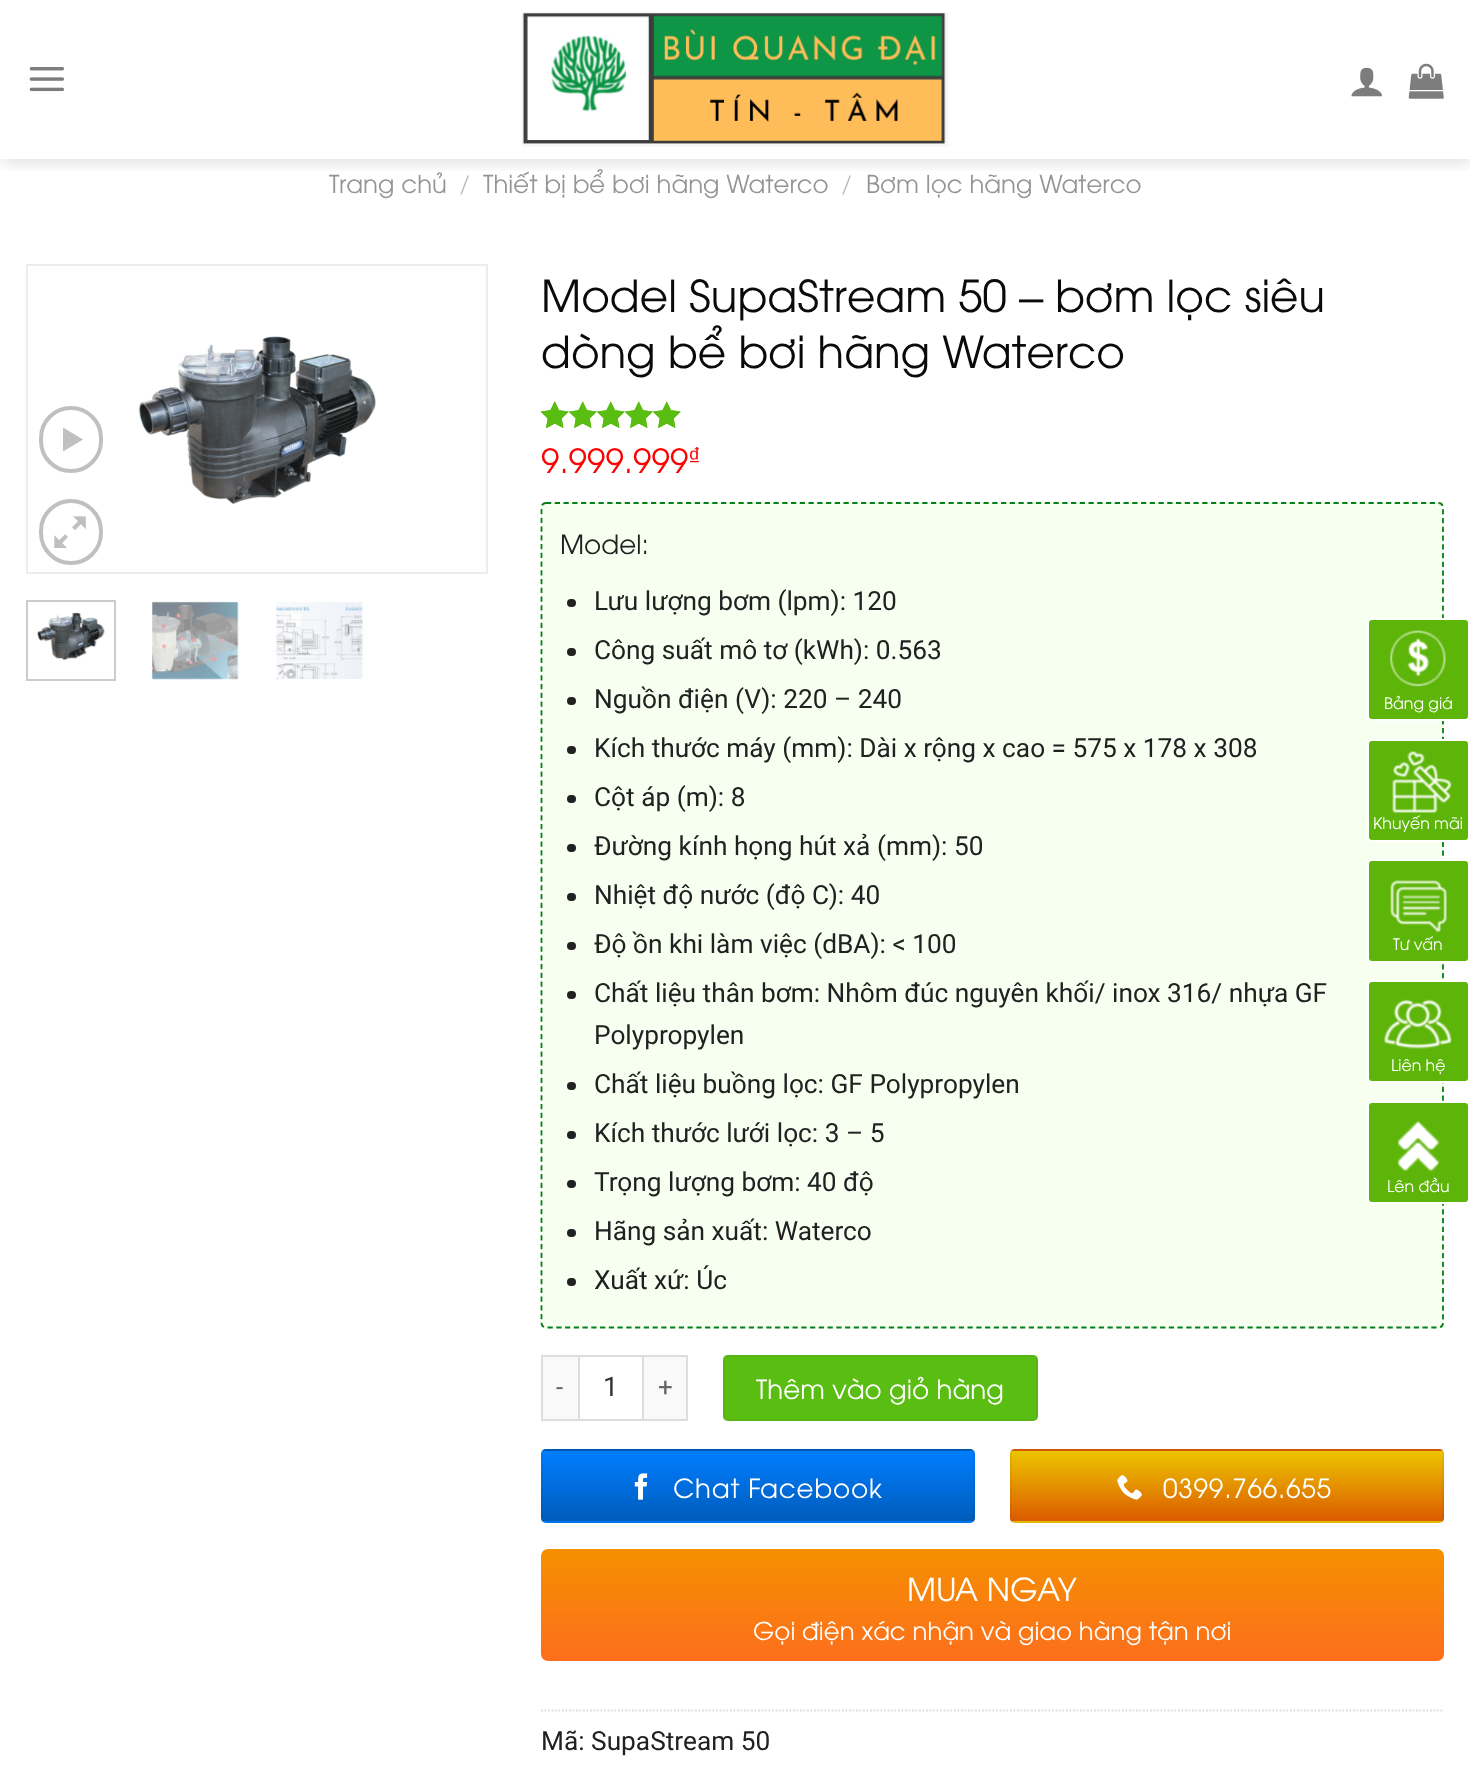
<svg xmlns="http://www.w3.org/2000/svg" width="1470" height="1765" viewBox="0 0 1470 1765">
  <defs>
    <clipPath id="clip1"><path d="M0 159h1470v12H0z"/></clipPath>
    <clipPath id="clip2"><rect x="541" y="1449" width="434" height="74" rx="5"/></clipPath>
    <linearGradient id="g1" gradientUnits="userSpaceOnUse" x1="758" y1="1451" x2="758" y2="1381"><stop offset="0" stop-color="#005cbb"/><stop offset="1" stop-color="#007eff"/></linearGradient>
    <linearGradient id="g2" gradientUnits="userSpaceOnUse" x1="758" y1="1521" x2="758" y2="1451"><stop offset="0" stop-color="#005cbb"/><stop offset="1" stop-color="#007eff"/></linearGradient>
    <linearGradient id="g3" gradientUnits="userSpaceOnUse" x1="758" y1="1591" x2="758" y2="1521"><stop offset="0" stop-color="#005cbb"/><stop offset="1" stop-color="#007eff"/></linearGradient>
    <clipPath id="clip3"><rect x="1010" y="1449" width="434" height="74" rx="5"/></clipPath>
    <linearGradient id="g4" gradientUnits="userSpaceOnUse" x1="1227" y1="1451" x2="1227" y2="1381"><stop offset="0" stop-color="#dc5b00"/><stop offset="1" stop-color="#ecc500"/></linearGradient>
    <linearGradient id="g5" gradientUnits="userSpaceOnUse" x1="1227" y1="1521" x2="1227" y2="1451"><stop offset="0" stop-color="#dc5b00"/><stop offset="1" stop-color="#ecc500"/></linearGradient>
    <linearGradient id="g6" gradientUnits="userSpaceOnUse" x1="1227" y1="1591" x2="1227" y2="1521"><stop offset="0" stop-color="#dc5b00"/><stop offset="1" stop-color="#ecc500"/></linearGradient>
    <linearGradient id="g7" gradientUnits="userSpaceOnUse" x1="992" y1="1549" x2="992" y2="1661"><stop offset="0" stop-color="#f59000"/><stop offset="1" stop-color="#fd6e1d"/></linearGradient>
  </defs>
  <rect width="100%" height="100%" fill="#fff"/>
  <g clip-path="url(#clip1)">
    <path d="M2 2h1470v159H2z" fill="#00000026" filter="blur(9px)"/>
  </g>
  <image x="29" y="67" width="36" height="25" href="img/1.png"/>
  <image x="521" y="12" width="428" height="135" href="img/2.png"/>
  <image x="1351" y="67" width="31" height="30" href="img/3.png"/>
  <image x="1408" y="63" width="36" height="36" href="img/4.png"/>
  <path d="M27 265h460v308H27z" fill="none" stroke="#ececec" stroke-width="2"/>
  <image x="139" y="336" width="237" height="168" href="img/5.png"/>
  <rect x="41" y="408" width="60" height="63" rx="30" fill="none" stroke="#c0c0c0" stroke-width="4"/>
  <path d="M63 427.5L83 439.5L63 451.5Z" fill="#c0c0c0"/>
  <rect x="41" y="501" width="60" height="62" rx="30" fill="none" stroke="#c0c0c0" stroke-width="4"/>
  <image x="54" y="516" width="32" height="32" href="img/6.png"/>
  <path d="M27 601h88v79H27z" fill="none" stroke="#ccc" stroke-width="2"/>
  <image x="37" y="612" width="68" height="49" href="img/7.png"/>
  <image x="152" y="601" width="87" height="79" href="img/8.png"/>
  <image x="276" y="602" width="87" height="77" href="img/9.png"/>
  <image x="541" y="401" width="140" height="27" href="img/10.png"/>
  <image x="541" y="401" width="140" height="27" href="img/11.png"/>
  <image x="541" y="401" width="17" height="27" href="img/12.png"/>
  <rect x="541" y="502" width="903" height="826" rx="5" fill="#f7fff1"/>
  <path d="M546 503H1438.5C1441 503 1443 505 1443 507.5V1323C1443 1325.5 1441 1327.5 1438.5 1327.5H546C543.5 1327.5 541.5 1325.5 541.5 1323V507.5C541.5 505 543.5 503 546 503Z" fill="none" stroke="#038018" stroke-width="1.8" stroke-dasharray="5.25 3.5"/>
  <rect x="567" y="599" width="9" height="8" rx="4" fill="#212121"/>
  <rect x="567" y="648" width="9" height="8" rx="4" fill="#212121"/>
  <rect x="567" y="697" width="9" height="8" rx="4" fill="#212121"/>
  <rect x="567" y="746" width="9" height="8" rx="4" fill="#212121"/>
  <rect x="567" y="795" width="9" height="8" rx="4" fill="#212121"/>
  <rect x="567" y="844" width="9" height="8" rx="4" fill="#212121"/>
  <rect x="567" y="893" width="9" height="8" rx="4" fill="#212121"/>
  <rect x="567" y="942" width="9" height="8" rx="4" fill="#212121"/>
  <rect x="567" y="991" width="9" height="8" rx="4" fill="#212121"/>
  <rect x="567" y="1082" width="9" height="8" rx="4" fill="#212121"/>
  <rect x="567" y="1131" width="9" height="8" rx="4" fill="#212121"/>
  <rect x="567" y="1180" width="9" height="8" rx="4" fill="#212121"/>
  <rect x="567" y="1229" width="9" height="8" rx="4" fill="#212121"/>
  <rect x="567" y="1278" width="9" height="8" rx="4" fill="#212121"/>
  <path d="M543 1357h35v62H543z" fill="#f9f9f9"/>
  <path d="M541 1355h37v2H541z" fill="#ddd"/>
  <path d="M541 1419h37v2H541z" fill="#ddd"/>
  <path d="M541 1355h2v66H541z" fill="#ddd"/>
  <path d="M579 1356h64v64H579z" fill="none" stroke="#ddd" stroke-width="2"/>
  <path d="M644 1357h42v62H644z" fill="#f9f9f9"/>
  <path d="M644 1355h44v2H644z" fill="#ddd"/>
  <path d="M686 1355h2v66H686z" fill="#ddd"/>
  <path d="M644 1419h44v2H644z" fill="#ddd"/>
  <rect x="723" y="1355" width="315" height="66" rx="5" fill="#5abe12"/>
  <path d="M724 1356h313v64H724z" fill="none" stroke="#0000000d" stroke-width="2"/>
  <g clip-path="url(#clip2)">
    <path d="M541 1449h434v2H541z" fill="url(#g1)"/>
    <path d="M541 1451h434v70H541z" fill="url(#g2)"/>
    <path d="M541 1521h434v2H541z" fill="url(#g3)"/>
  </g>
  <path d="M542 1450h432v72H542z" fill="none" stroke="#0000000d" stroke-width="2"/>
  <image x="634" y="1473" width="14" height="27" href="img/13.png"/>
  <g clip-path="url(#clip3)">
    <path d="M1010 1449h434v2H1010z" fill="url(#g4)"/>
    <path d="M1010 1451h434v70H1010z" fill="url(#g5)"/>
    <path d="M1010 1521h434v2H1010z" fill="url(#g6)"/>
  </g>
  <path d="M1011 1450h432v72H1011z" fill="none" stroke="#0000000d" stroke-width="2"/>
  <image x="1117" y="1475" width="25" height="25" href="img/14.png"/>
  <rect x="541" y="1549" width="903" height="112" rx="7" fill="url(#g7)"/>
  <path d="M541 1710.5H1444" fill="none" stroke="#ddd" stroke-width="1.8" stroke-dasharray="1.75 1.75"/>
  <rect x="1368" y="619" width="101" height="101" rx="4" fill="#5eb509" stroke="#fff" stroke-width="2"/>
  <image x="1390" y="630" width="56" height="57" href="img/15.png"/>
  <rect x="1368" y="740" width="101" height="101" rx="4" fill="#5eb509" stroke="#fff" stroke-width="2"/>
  <image x="1392" y="751" width="60" height="62" href="img/16.png"/>
  <rect x="1368" y="860" width="101" height="102" rx="4" fill="#5eb509" stroke="#fff" stroke-width="2"/>
  <image x="1390" y="880" width="57" height="53" href="img/17.png"/>
  <rect x="1368" y="981" width="101" height="101" rx="4" fill="#5eb509" stroke="#fff" stroke-width="2"/>
  <image x="1384" y="999" width="68" height="50" href="img/18.png"/>
  <rect x="1368" y="1102" width="101" height="101" rx="4" fill="#5eb509" stroke="#fff" stroke-width="2"/>
  <image x="1397" y="1120" width="43" height="52" href="img/19.png"/>
  <text x="329" y="193" font-family="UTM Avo" font-size="24.5" fill="#949494">Trang chủ</text>
  <text x="460" y="193" font-family="Roboto" font-size="24.5" font-weight="300" fill="#b2b2b2">/</text>
  <text x="483" y="193" font-family="UTM Avo" font-size="24.5" fill="#949494">Thiết bị bể bơi hãng Waterco</text>
  <text x="842" y="193" font-family="Roboto" font-size="24.5" font-weight="300" fill="#b2b2b2">/</text>
  <text x="866" y="193" font-family="UTM Avo" font-size="24.5" fill="#949494">Bơm lọc hãng Waterco</text>
  <text x="541" y="312" font-family="UTM Avo" font-size="43.75" fill="#0a0a0a">Model SupaStream 50</text>
  <text x="1019" y="312" font-family="Liberation Sans" font-size="43.75" fill="#0a0a0a">–</text>
  <g font-family="UTM Avo" font-size="43.75" fill="#0a0a0a">
    <text x="1055" y="312">bơm lọc siêu</text>
    <text x="541" y="368">dòng bể bơi hãng Waterco</text>
  </g>
  <text x="541" y="473" font-family="UTM Avo" font-size="33.25" fill="#f00">9.999.999</text>
  <text x="688" y="465" font-family="Liberation Sans" font-size="25" fill="#f00">₫</text>
  <text x="560" y="554" font-family="UTM Avo" font-size="26.25" fill="#212121">Model:</text>
  <g font-family="Roboto" font-size="26.25" fill="#212121">
    <text x="594" y="610">Lưu lượng bơm (lpm): 120</text>
    <text x="594" y="659">Công suất mô tơ (kWh): 0.563</text>
    <text x="594" y="708">Nguồn điện (V): 220 – 240</text>
    <text x="594" y="757">Kích thước máy (mm): Dài x rộng x cao = 575 x 178 x 308</text>
    <text x="594" y="806">Cột áp (m): 8</text>
    <text x="594" y="855">Đường kính họng hút xả (mm): 50</text>
    <text x="594" y="904">Nhiệt độ nước (độ C): 40</text>
    <text x="594" y="953">Độ ồn khi làm việc (dBA): &lt; 100</text>
    <text x="594" y="1002">Chất liệu thân bơm: Nhôm đúc nguyên khối/ inox 316/ nhựa GF</text>
    <text x="594" y="1044">Polypropylen</text>
    <text x="594" y="1093">Chất liệu buồng lọc: GF Polypropylen</text>
    <text x="594" y="1142">Kích thước lưới lọc: 3 – 5</text>
    <text x="594" y="1191">Trọng lượng bơm: 40 độ</text>
    <text x="594" y="1240">Hãng sản xuất: Waterco</text>
    <text x="594" y="1289">Xuất xứ: Úc</text>
  </g>
  <text x="556" y="1396" font-family="Roboto" font-size="26" letter-spacing="0.75" fill="#666">-</text>
  <text x="603" y="1396" font-family="Roboto" font-size="27" fill="#333">1</text>
  <text x="658" y="1396" font-family="Roboto" font-size="26" letter-spacing="0.75" fill="#666">+</text>
  <text x="756" y="1399" font-family="UTM Avo" font-size="26.25" fill="#fff">Thêm vào giỏ hàng</text>
  <g font-family="UTM Avo" font-size="26.25" letter-spacing="0.75" fill="#fff">
    <text x="673" y="1498">Chat Facebook</text>
    <text x="1163" y="1498">0399.766.655</text>
  </g>
  <text x="907" y="1601" font-family="UTM Avo" font-size="31.5" fill="#fff">MUA NGAY</text>
  <text x="753" y="1640" font-family="UTM Avo" font-size="24.5" fill="#fff">Gọi điện xác nhận và giao hàng tận nơi</text>
  <text x="541" y="1750" font-family="Roboto" font-size="26.25" fill="#212121">Mã: SupaStream 50</text>
  <g font-family="UTM Avo" font-size="15.75" fill="#fff">
    <text x="1384" y="709">Bảng giá</text>
    <text x="1373" y="829">Khuyến mãi</text>
    <text x="1393" y="950">Tư vấn</text>
    <text x="1391" y="1071">Liên hệ</text>
    <text x="1387" y="1192">Lên đầu</text>
  </g>
</svg>
